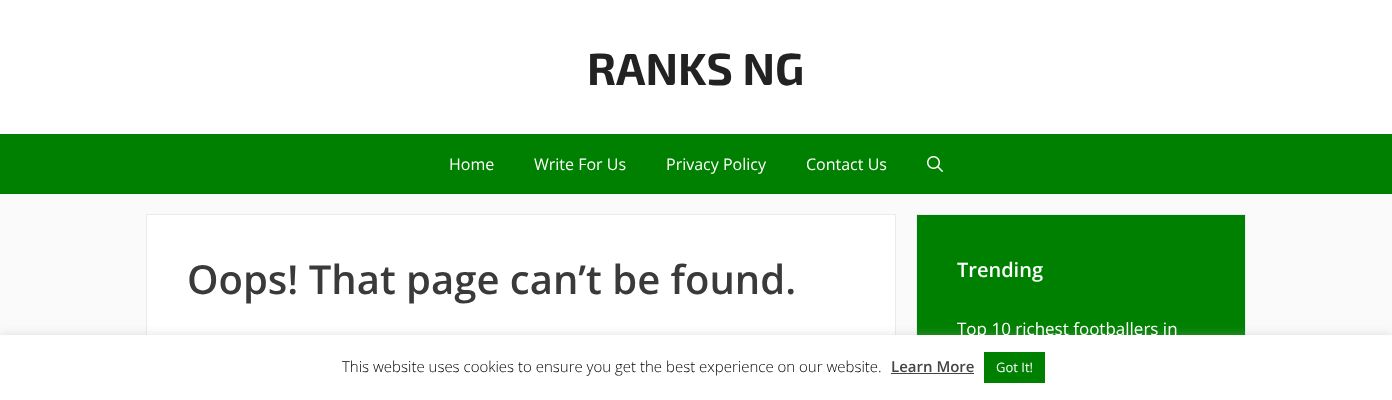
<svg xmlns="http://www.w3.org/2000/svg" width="1392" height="400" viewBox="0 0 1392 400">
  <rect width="100%" height="100%" fill="#fafafa"/>
  <path d="M0 0h1392v134H0z" fill="#fff"/>
  <path d="M0 134h1392v60H0z" fill="#008000"/>
  <image x="927" y="156" width="16" height="16" href="img/1.png"/>
  <path d="M147 215h748v120H147z" fill="#fff"/>
  <path d="M146.5 214.5h749v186H146.5z" fill="none" stroke="#e8eaed"/>
  <path d="M917 215h328v120H917z" fill="#008000"/>
  <path d="M916.5 214.5h329v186H916.5z" fill="none" stroke="#e8eaed"/>
  <path d="M0 334h1392v65H0z" fill="#acabab4d" filter="blur(5px)"/>
  <path d="M0 335h1392v65H0z" fill="#fff"/>
  <path d="M891 373h83v1H891z" fill="#444"/>
  <path d="M984 352h61v31H984z" fill="#008000"/>
  <text x="587" y="85" font-family="'Exo 2'" font-size="45" font-weight="bold" fill="#222">RANKS NG</text>
  <g font-family="Open Sans" font-size="16" fill="#fff">
    <text x="449" y="170">Home</text>
    <text x="534" y="170">Write For Us</text>
    <text x="666" y="170">Privacy Policy</text>
    <text x="806" y="170">Contact Us</text>
  </g>
  <text x="187" y="294" font-family="Open Sans" font-size="40" font-weight="600" fill="#3a3a3a">Oops! That page can’t be found.</text>
  <text x="957" y="277" font-family="Open Sans" font-size="20" font-weight="600" fill="#fff">Trending</text>
  <text x="957" y="335" font-family="Open Sans" font-size="17" fill="#fff">Top 10 richest footballers in</text>
  <text x="342" y="372" font-family="Open Sans" font-size="15" font-weight="300" fill="#000">This website uses cookies to ensure you get the best experience on our website.</text>
  <text x="891" y="372" font-family="Open Sans" font-size="15" font-weight="600" fill="#444">Learn More</text>
  <text x="996" y="372" font-family="Open Sans" font-size="13" fill="#fff">Got It!</text>
</svg>
